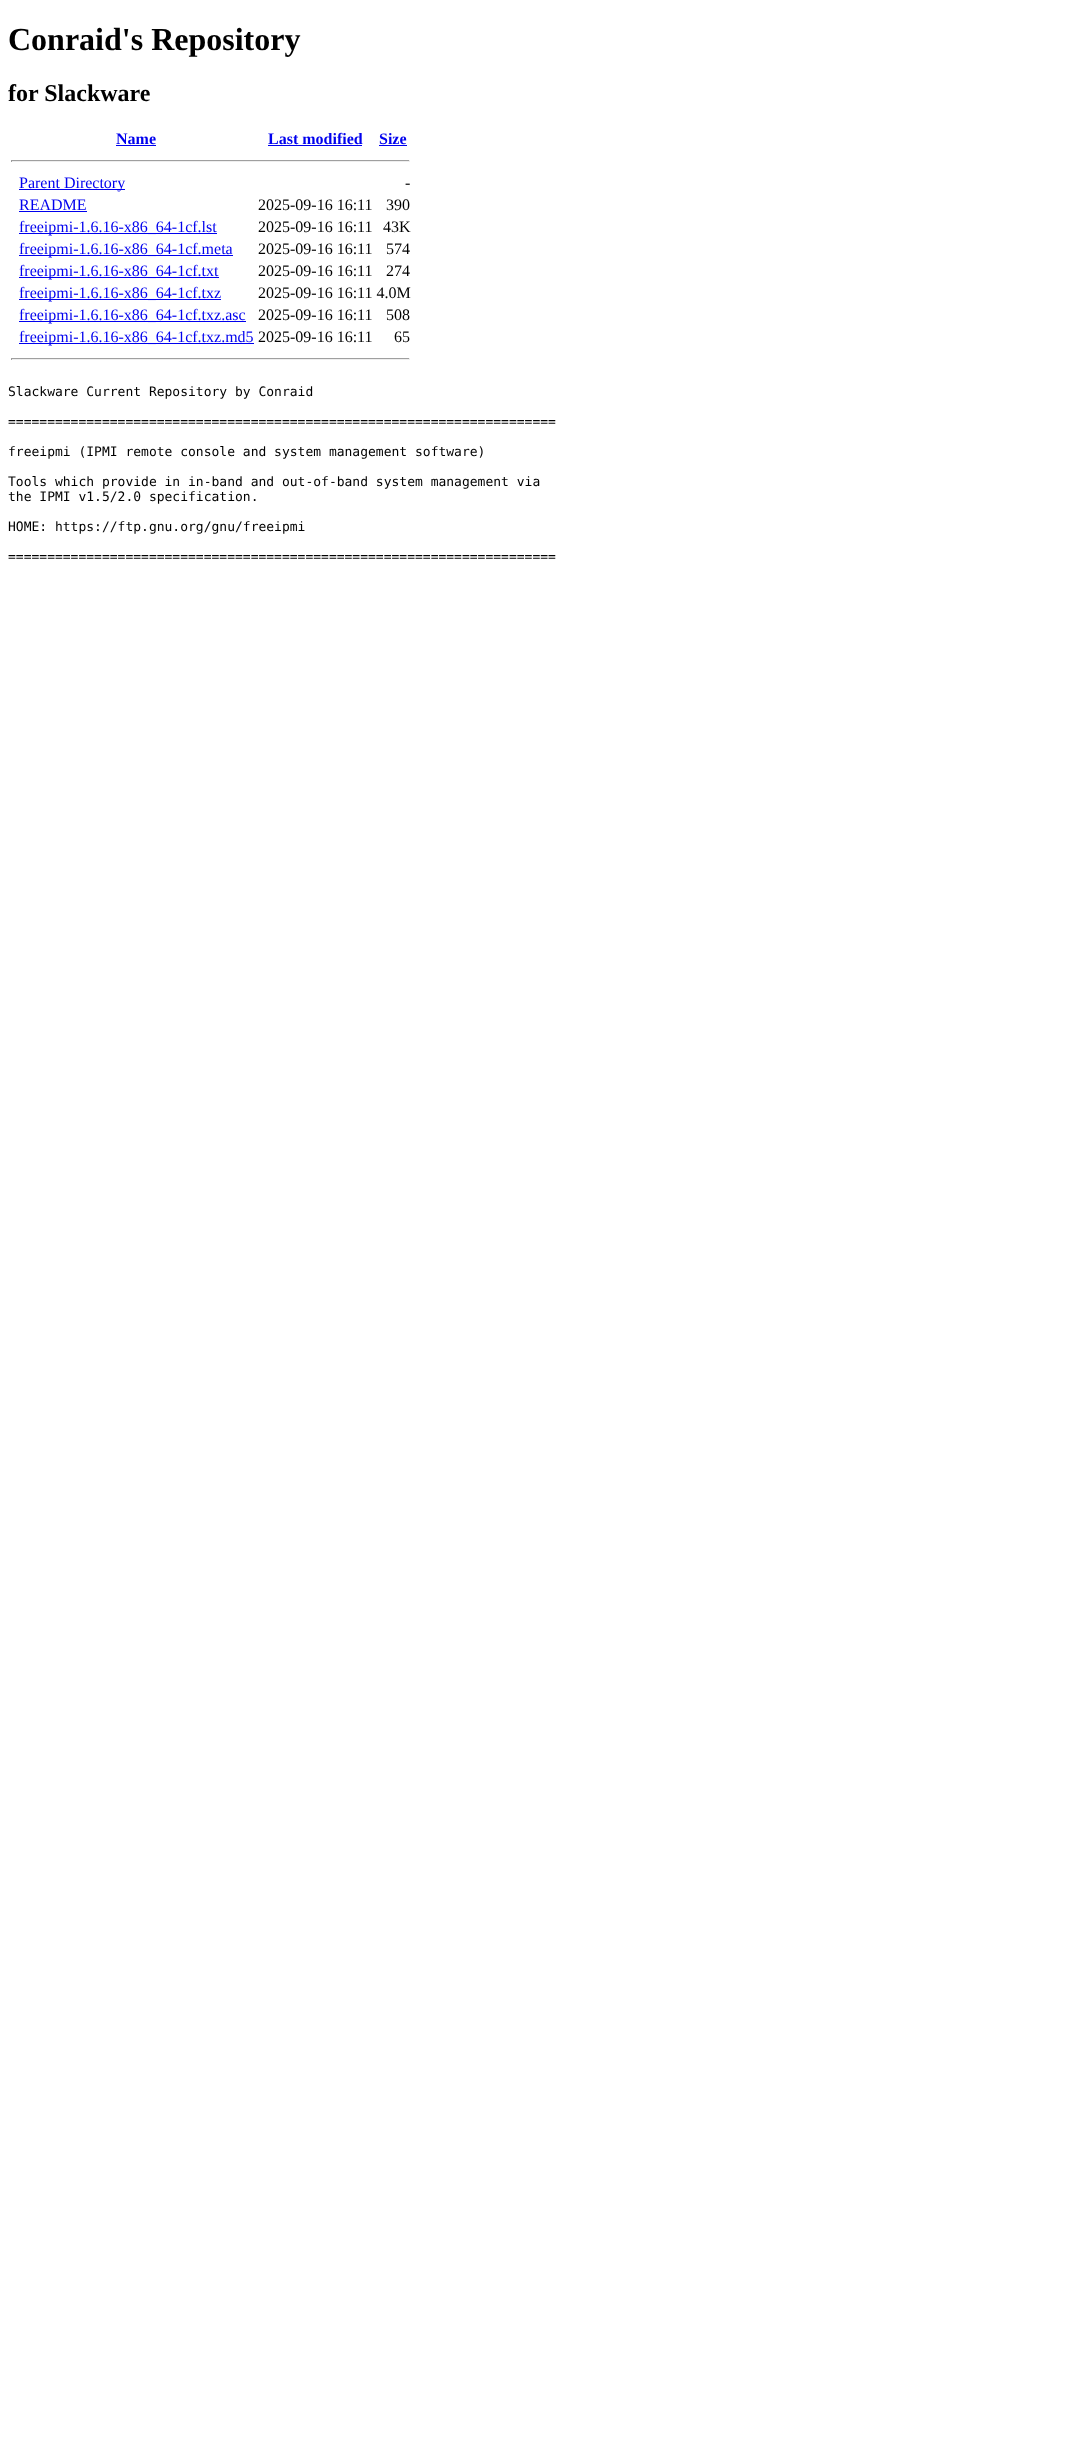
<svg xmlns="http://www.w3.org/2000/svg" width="1076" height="2452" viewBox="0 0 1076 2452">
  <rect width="100%" height="100%" fill="#fff"/>
  <path d="M116 145h40v1H116z" fill="#00e"/>
  <path d="M268 145h94v1H268z" fill="#00e"/>
  <path d="M379 145h28v1H379z" fill="#00e"/>
  <path d="M11 160h399v1H11z" fill="#9f9f9f"/>
  <path d="M409 160h1v2H409z" fill="#eee"/>
  <path d="M11 161h399v1H11z" fill="#eee"/>
  <path d="M11 160h1v2H11z" fill="#9f9f9f"/>
  <path d="M19 189h106v1H19z" fill="#00e"/>
  <path d="M19 211h68v1H19z" fill="#00e"/>
  <path d="M19 233h198v1H19z" fill="#00e"/>
  <path d="M19 255h214v1H19z" fill="#00e"/>
  <path d="M19 277h200v1H19z" fill="#00e"/>
  <path d="M19 299h202v1H19z" fill="#00e"/>
  <path d="M19 321h227v1H19z" fill="#00e"/>
  <path d="M19 343h235v1H19z" fill="#00e"/>
  <path d="M11 358h399v1H11z" fill="#9f9f9f"/>
  <path d="M409 358h1v2H409z" fill="#eee"/>
  <path d="M11 359h399v1H11z" fill="#eee"/>
  <path d="M11 358h1v2H11z" fill="#9f9f9f"/>
  <text x="8" y="50" font-family="Liberation Serif" font-size="32" font-weight="bold" fill="#000">Conraid's Repository</text>
  <text x="8" y="101" font-family="Liberation Serif" font-size="24" font-weight="bold" fill="#000">for Slackware</text>
  <g font-family="Liberation Serif" font-size="16" font-weight="bold" fill="#00e">
    <text x="116" y="144">Name</text>
    <text x="268" y="144">Last modified</text>
    <text x="379" y="144">Size</text>
  </g>
  <text x="19" y="188" font-family="Liberation Serif" font-size="16" fill="#00e">Parent Directory</text>
  <text x="405" y="188" font-family="Liberation Serif" font-size="16" fill="#000">-</text>
  <text x="19" y="210" font-family="Liberation Serif" font-size="16" fill="#00e">README</text>
  <g font-family="Liberation Serif" font-size="16" fill="#000">
    <text x="258" y="210">2025-09-16 16:11</text>
    <text x="386" y="210">390</text>
  </g>
  <text x="19" y="232" font-family="Liberation Serif" font-size="16" fill="#00e">freeipmi-1.6.16-x86_64-1cf.lst</text>
  <g font-family="Liberation Serif" font-size="16" fill="#000">
    <text x="258" y="232">2025-09-16 16:11</text>
    <text x="383" y="232">43K</text>
  </g>
  <text x="19" y="254" font-family="Liberation Serif" font-size="16" fill="#00e">freeipmi-1.6.16-x86_64-1cf.meta</text>
  <g font-family="Liberation Serif" font-size="16" fill="#000">
    <text x="258" y="254">2025-09-16 16:11</text>
    <text x="386" y="254">574</text>
  </g>
  <text x="19" y="276" font-family="Liberation Serif" font-size="16" fill="#00e">freeipmi-1.6.16-x86_64-1cf.txt</text>
  <g font-family="Liberation Serif" font-size="16" fill="#000">
    <text x="258" y="276">2025-09-16 16:11</text>
    <text x="386" y="276">274</text>
  </g>
  <text x="19" y="298" font-family="Liberation Serif" font-size="16" fill="#00e">freeipmi-1.6.16-x86_64-1cf.txz</text>
  <text x="258" y="298" font-family="Liberation Serif" font-size="16" fill="#000">2025-09-16 16:11 4.0M</text>
  <text x="19" y="320" font-family="Liberation Serif" font-size="16" fill="#00e">freeipmi-1.6.16-x86_64-1cf.txz.asc</text>
  <g font-family="Liberation Serif" font-size="16" fill="#000">
    <text x="258" y="320">2025-09-16 16:11</text>
    <text x="386" y="320">508</text>
  </g>
  <text x="19" y="342" font-family="Liberation Serif" font-size="16" fill="#00e">freeipmi-1.6.16-x86_64-1cf.txz.md5</text>
  <g font-family="Liberation Serif" font-size="16" fill="#000">
    <text x="258" y="342">2025-09-16 16:11</text>
    <text x="394" y="342">65</text>
  </g>
  <g font-family="DejaVu Sans Mono" font-size="13" fill="#000">
    <text x="8" y="396">Slackware Current Repository by Conraid</text>
    <text x="8" y="426">======================================================================</text>
    <text x="8" y="456">freeipmi (IPMI remote console and system management software)</text>
    <text x="8" y="486">Tools which provide in in-band and out-of-band system management via</text>
    <text x="8" y="501">the IPMI v1.5/2.0 specification.</text>
    <text x="8" y="531">HOME: https://ftp.gnu.org/gnu/freeipmi</text>
    <text x="8" y="561">======================================================================</text>
  </g>
</svg>
